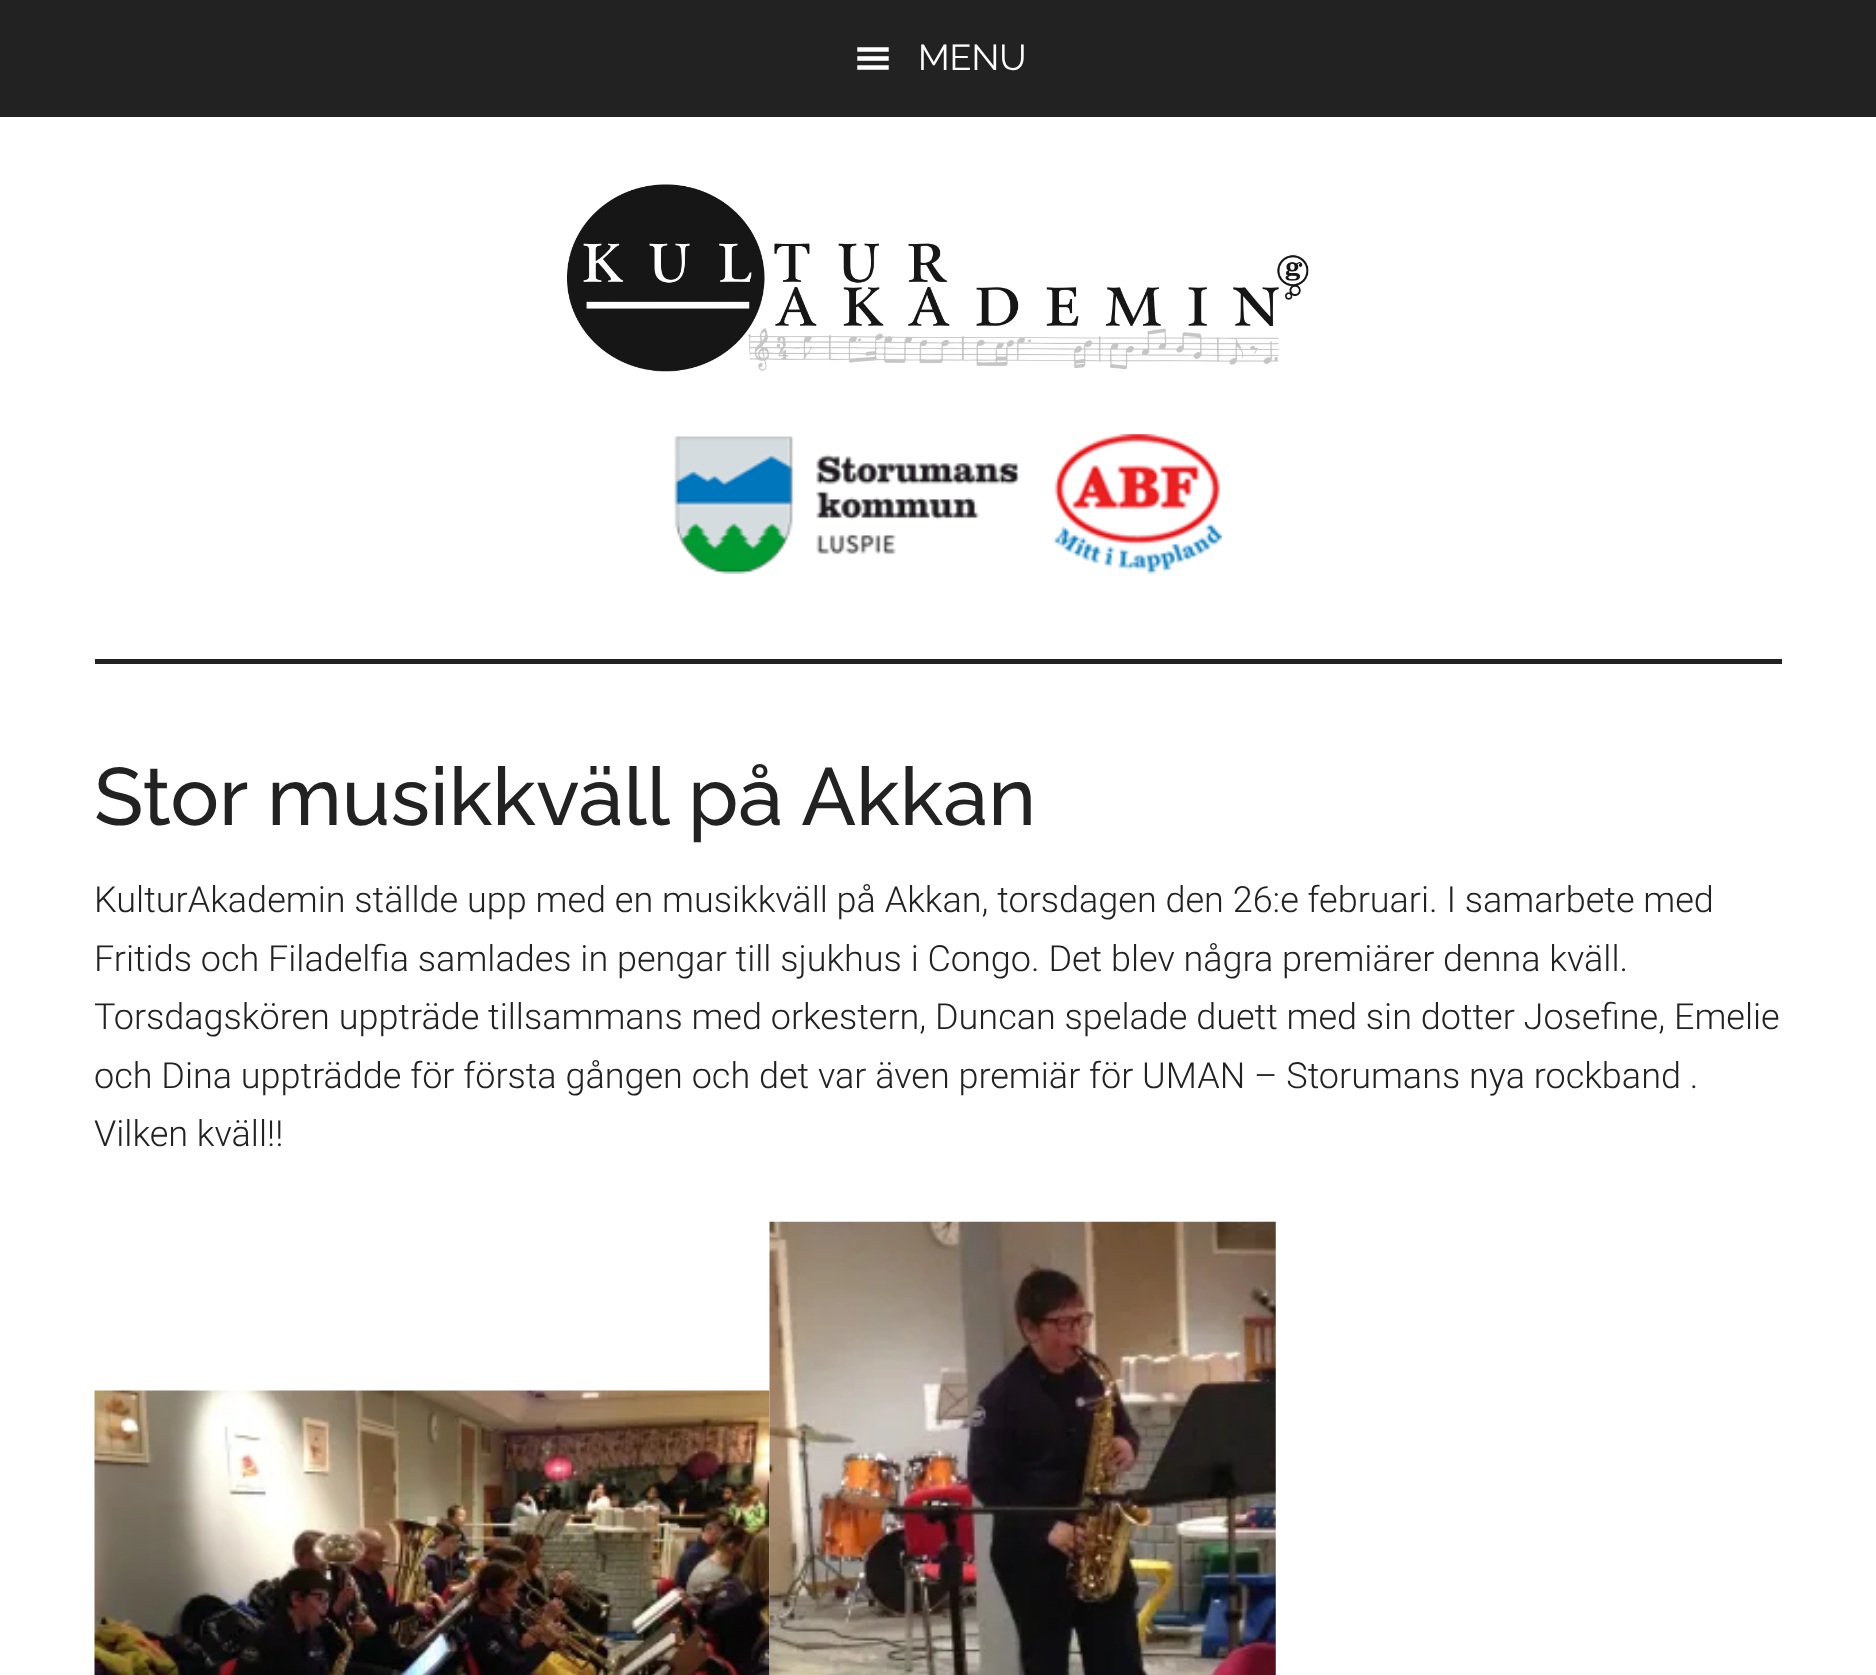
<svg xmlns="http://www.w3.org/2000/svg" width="1876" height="1675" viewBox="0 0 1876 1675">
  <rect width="100%" height="100%" fill="#fff"/>
  <path d="M0 0h1876v117H0z" fill="#222"/>
  <image x="857" y="47" width="32" height="23" href="img/1.png"/>
  <path d="M95 659h1687v5H95z" fill="#222"/>
  <image x="567" y="184" width="742" height="188" href="img/2.png"/>
  <image x="674" y="434" width="548" height="140" href="img/3.png"/>
  <image x="94" y="1390" width="676" height="285" href="img/4.png"/>
  <image x="769" y="1221" width="507" height="454" href="img/5.png"/>
  <text x="918" y="70" font-family="Raleway" font-size="36" fill="#fff">MENU</text>
  <text x="94" y="825" font-family="Raleway" font-size="81" font-weight="500" fill="#222">Stor musikkväll på Akkan</text>
  <g font-family="Roboto" font-size="36" font-weight="300" fill="#222">
    <text x="94" y="912">KulturAkademin ställde upp med en musikkväll på Akkan, torsdagen den 26:e februari. I samarbete med</text>
    <text x="94" y="971">Fritids och Filadelfia samlades in pengar till sjukhus i Congo. Det blev några premiärer denna kväll.</text>
    <text x="94" y="1029">Torsdagskören uppträde tillsammans med orkestern, Duncan spelade duett med sin dotter Josefine, Emelie</text>
    <text x="94" y="1088">och Dina uppträdde för första gången och det var även premiär för UMAN – Storumans nya rockband .</text>
    <text x="94" y="1146">Vilken kväll!!</text>
  </g>
</svg>
